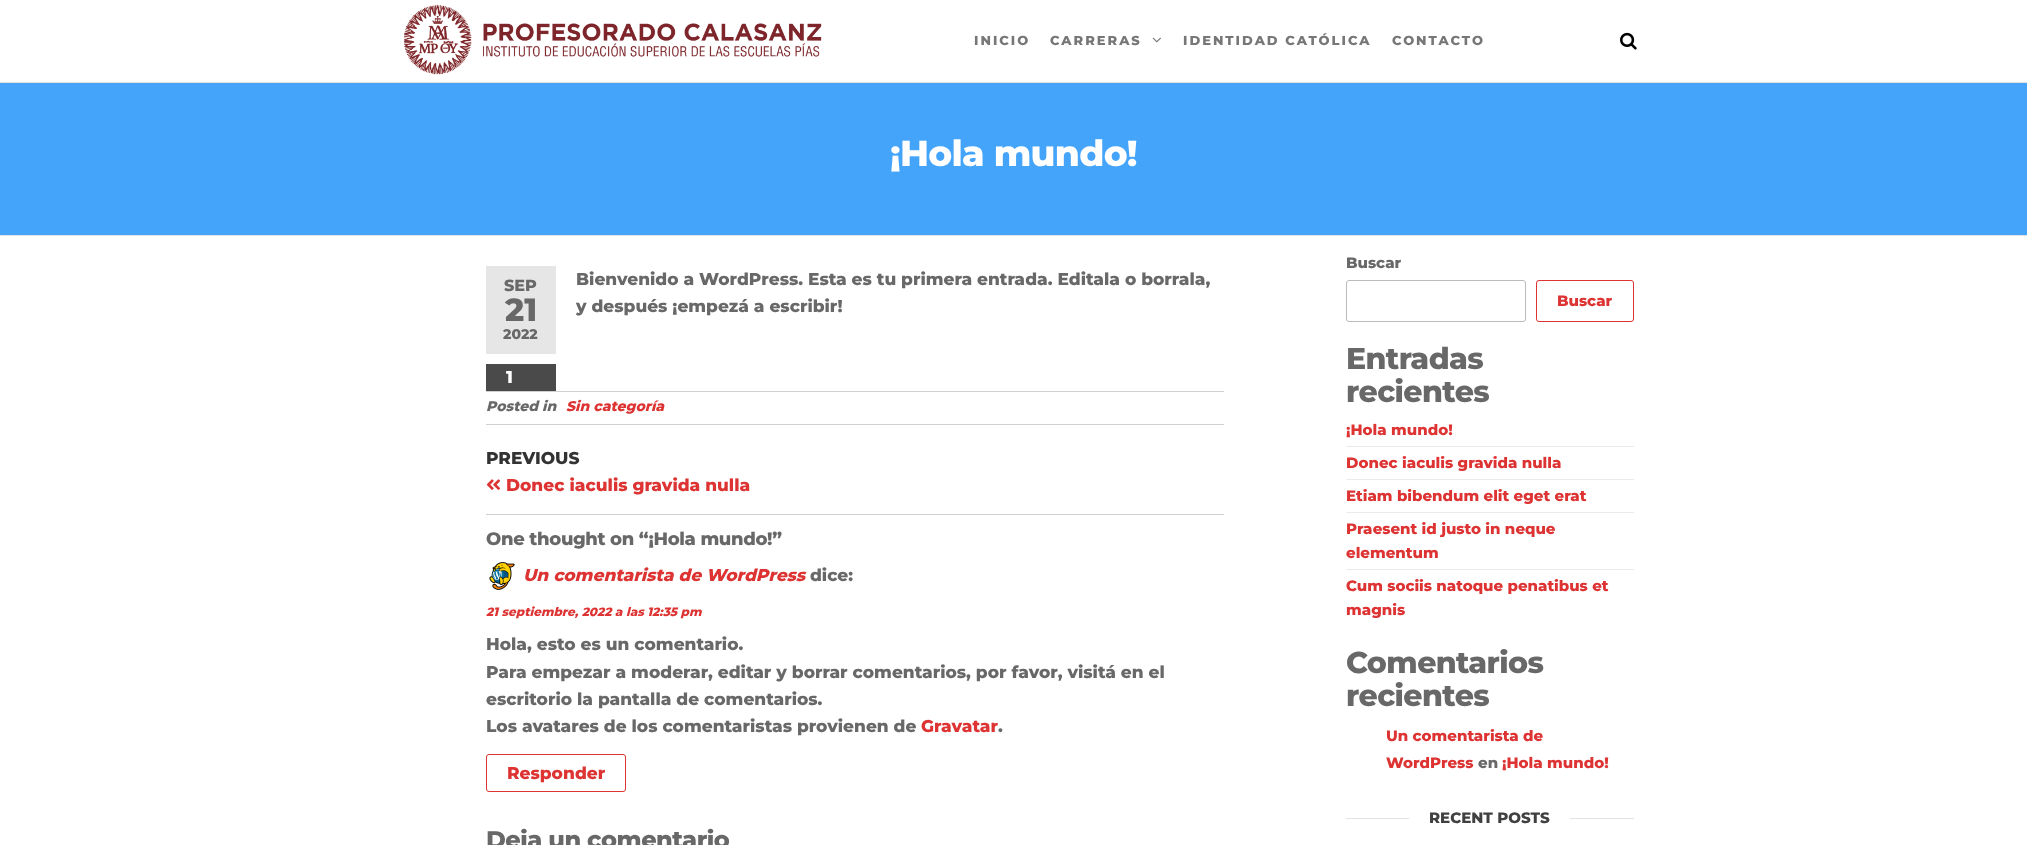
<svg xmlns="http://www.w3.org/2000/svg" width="2027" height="845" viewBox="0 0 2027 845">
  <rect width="100%" height="100%" fill="#fff"/>
  <path d="M0 82h2027v1H0z" fill="#e2e2e2"/>
  <image x="403" y="4" width="419" height="71" href="img/1.png"/>
  <image x="1152" y="37" width="9" height="6" href="img/2.png"/>
  <image x="1620" y="32" width="17" height="18" href="img/3.png"/>
  <path d="M0 235h2027v1H0z" fill="#e2e2e2"/>
  <path d="M0 83h2027v152H0z" fill="#43a4fa"/>
  <path d="M486 266h70v88H486z" fill="#e6e6e6"/>
  <path d="M486 364h70v27H486z" fill="#4a4a4a"/>
  <path d="M486 391h738v1H486z" fill="#d1d1d1"/>
  <path d="M486 424h738v1H486z" fill="#d1d1d1"/>
  <path d="M486 514h738v1H486z" fill="#d1d1d1"/>
  <image x="486" y="479" width="14" height="11" href="img/4.png"/>
  <image x="489" y="562" width="26" height="28" href="img/5.png"/>
  <rect x="486.5" y="754.5" width="139" height="37" rx="2.5" fill="none" stroke="#d33"/>
  <rect x="1346.5" y="280.5" width="179" height="41" rx="2.5" fill="none" stroke="#bbb"/>
  <rect x="1536.5" y="280.5" width="97" height="41" rx="2.5" fill="none" stroke="#d33"/>
  <path d="M1346 446h288v1H1346z" fill="#ebebeb"/>
  <path d="M1346 479h288v1H1346z" fill="#ebebeb"/>
  <path d="M1346 512h288v1H1346z" fill="#ebebeb"/>
  <path d="M1346 569h288v1H1346z" fill="#ebebeb"/>
  <path d="M1346 818h288v1H1346z" fill="#e2e2e2"/>
  <path d="M1409 818h161v1H1409z" fill="#fff"/>
  <g font-family="Montserrat" font-size="13" font-weight="800" letter-spacing="2" fill="#777">
    <text x="974" y="45">INICIO</text>
    <text x="1050" y="45">CARRERAS</text>
    <text x="1183" y="45">IDENTIDAD CATÓLICA</text>
    <text x="1392" y="45">CONTACTO</text>
  </g>
  <text x="890" y="166" font-family="Montserrat" font-size="36" font-weight="800" letter-spacing="-0.75" fill="#fff">¡Hola mundo!</text>
  <text x="504" y="291" font-family="Montserrat" font-size="16" font-weight="800" fill="#686868">SEP</text>
  <text x="505" y="321" font-family="Montserrat" font-size="32" font-weight="800" fill="#686868">21</text>
  <text x="503" y="339" font-family="Montserrat" font-size="14" font-weight="800" fill="#686868">2022</text>
  <text x="506" y="383" font-family="Montserrat" font-size="17" font-weight="800" fill="#fff">1</text>
  <g font-family="Montserrat" font-size="17" font-weight="800" fill="#686868">
    <text x="576" y="285">Bienvenido a WordPress. Esta es tu primera entrada. Editala o borrala,</text>
    <text x="576" y="312">y después ¡empezá a escribir!</text>
  </g>
  <text x="486" y="411" font-family="Montserrat" font-size="14" font-weight="800" font-style="italic" fill="#686868">Posted in</text>
  <text x="566" y="411" font-family="Montserrat" font-size="14" font-weight="800" font-style="italic" fill="#d33">Sin categoría</text>
  <text x="486" y="464" font-family="Montserrat" font-size="17" font-weight="800" fill="#333">PREVIOUS</text>
  <text x="506" y="491" font-family="Montserrat" font-size="17" font-weight="800" fill="#d33">Donec iaculis gravida nulla</text>
  <text x="486" y="545" font-family="Montserrat" font-size="18" font-weight="800" letter-spacing="-0.35" fill="#686868">One thought on “¡Hola mundo!”</text>
  <text x="523" y="581" font-family="Montserrat" font-size="17" font-weight="800" font-style="italic" fill="#d33">Un comentarista de WordPress</text>
  <text x="810" y="581" font-family="Montserrat" font-size="17" font-weight="800" fill="#686868">dice:</text>
  <text x="486" y="616" font-family="Montserrat" font-size="12" font-weight="800" font-style="italic" fill="#d33">21 septiembre, 2022 a las 12:35 pm</text>
  <g font-family="Montserrat" font-size="17" font-weight="800" fill="#686868">
    <text x="486" y="650">Hola, esto es un comentario.</text>
    <text x="486" y="678">Para empezar a moderar, editar y borrar comentarios, por favor, visitá en el</text>
    <text x="486" y="705">escritorio la pantalla de comentarios.</text>
    <text x="486" y="732">Los avatares de los comentaristas provienen de</text>
  </g>
  <text x="921" y="732" font-family="Montserrat" font-size="17" font-weight="800" fill="#d33">Gravatar</text>
  <text x="998" y="732" font-family="Montserrat" font-size="17" font-weight="800" fill="#686868">.</text>
  <text x="507" y="779" font-family="Montserrat" font-size="17" font-weight="800" fill="#d33">Responder</text>
  <text x="486" y="848" font-family="Montserrat" font-size="24" font-weight="800" letter-spacing="-0.5" fill="#686868">Deja un comentario</text>
  <text x="1346" y="268" font-family="Montserrat" font-size="15" font-weight="800" fill="#686868">Buscar</text>
  <text x="1557" y="306" font-family="Montserrat" font-size="15" font-weight="800" fill="#d33">Buscar</text>
  <g font-family="Montserrat" font-size="30" font-weight="800" letter-spacing="-0.6" fill="#686868">
    <text x="1346" y="369">Entradas</text>
    <text x="1346" y="402">recientes</text>
  </g>
  <g font-family="Montserrat" font-size="15" font-weight="800" fill="#d33">
    <text x="1346" y="435">¡Hola mundo!</text>
    <text x="1346" y="468">Donec iaculis gravida nulla</text>
    <text x="1346" y="501">Etiam bibendum elit eget erat</text>
    <text x="1346" y="534">Praesent id justo in neque</text>
    <text x="1346" y="558">elementum</text>
    <text x="1346" y="591">Cum sociis natoque penatibus et</text>
    <text x="1346" y="615">magnis</text>
  </g>
  <g font-family="Montserrat" font-size="30" font-weight="800" letter-spacing="-0.6" fill="#686868">
    <text x="1346" y="673">Comentarios</text>
    <text x="1346" y="706">recientes</text>
  </g>
  <g font-family="Montserrat" font-size="15" font-weight="800" fill="#d33">
    <text x="1386" y="741">Un comentarista de</text>
    <text x="1386" y="768">WordPress</text>
  </g>
  <text x="1478" y="768" font-family="Montserrat" font-size="15" font-weight="800" fill="#686868">en</text>
  <text x="1502" y="768" font-family="Montserrat" font-size="15" font-weight="800" fill="#d33">¡Hola mundo!</text>
  <text x="1429" y="823" font-family="Montserrat" font-size="15" font-weight="800" fill="#404040">RECENT POSTS</text>
</svg>
